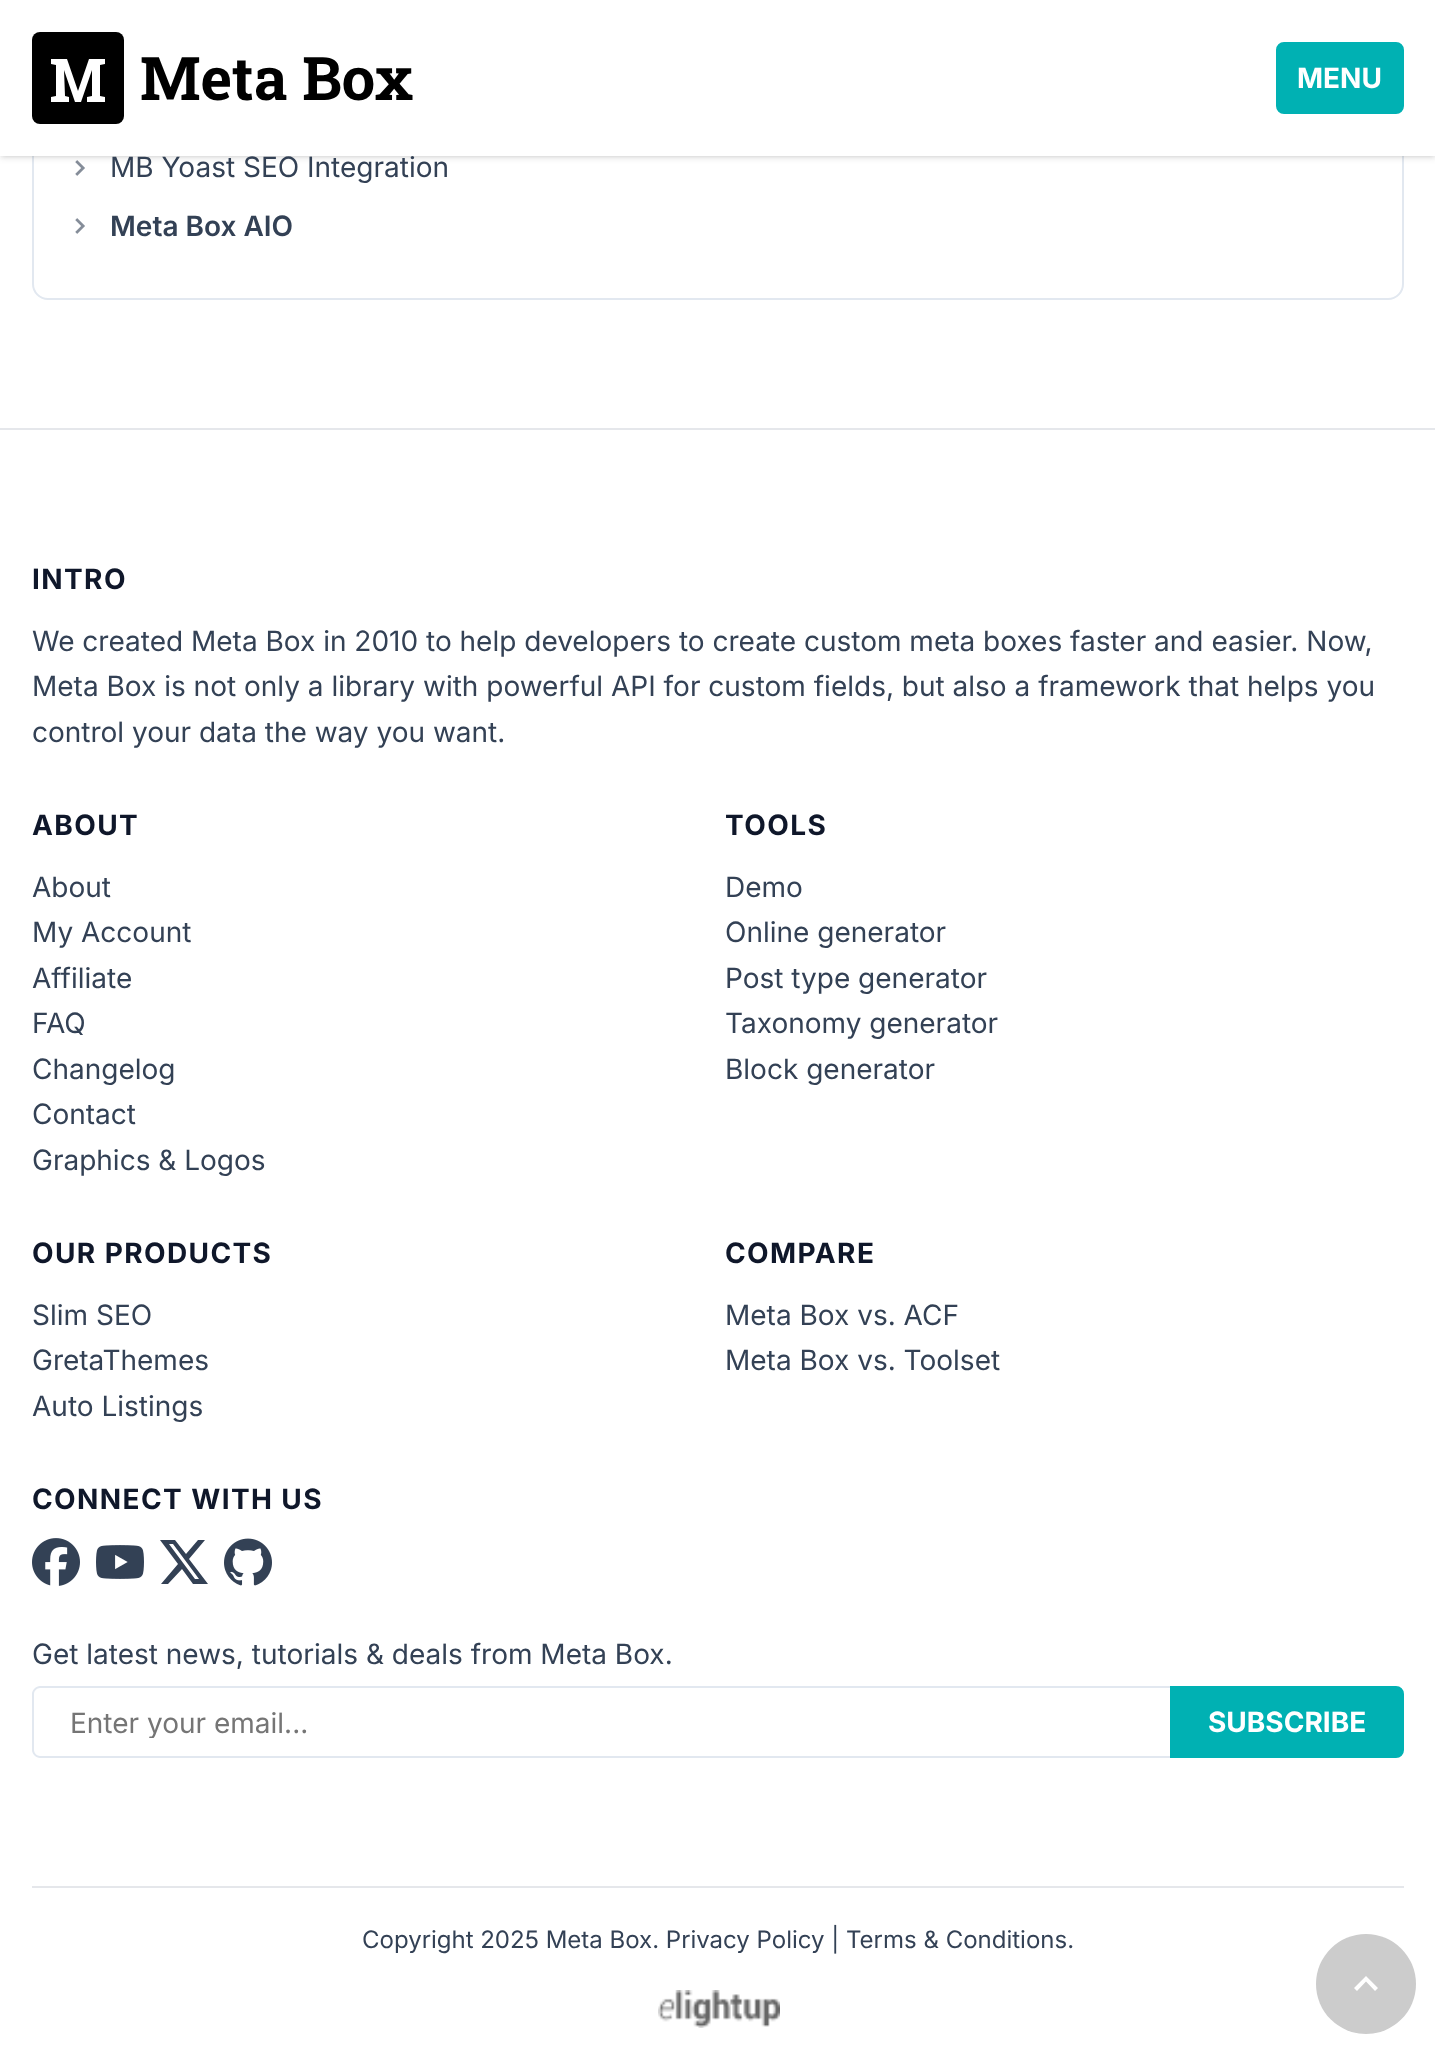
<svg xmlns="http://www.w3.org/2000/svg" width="1435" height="2054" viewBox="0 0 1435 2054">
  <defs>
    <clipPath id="clip1"><path d="M70 1704h1064v34H70z"/></clipPath>
  </defs>
  <rect width="100%" height="100%" fill="#fff"/>
  <rect x="33" y="-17" width="1370" height="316" rx="15" fill="none" stroke="#e2e8f0" stroke-width="2"/>
  <image x="75" y="160" width="10" height="16" href="img/1.png"/>
  <path d="M2 4h1432v152H2z" fill="#0000001a" filter="blur(2px)"/>
  <path d="M0 2h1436v156H0z" fill="#0000001a" filter="blur(3px)"/>
  <image x="75" y="218" width="10" height="16" href="img/1.png"/>
  <path d="M0 428h1435v2H0z" fill="#e5e7eb"/>
  <image x="32" y="1538" width="48" height="48" href="img/2.png"/>
  <image x="96" y="1545" width="48" height="34" href="img/3.png"/>
  <path d="M198 1540H205L189 1559L208 1584H193L182 1569L168 1584H161L178 1564L160 1540H175L186 1554ZM195 1579H199L173 1544H169Z" fill="#334155"/>
  <image x="224" y="1538" width="48" height="48" href="img/4.png"/>
  <path d="M40 1686H1170V1758H40C36 1758 32 1754 32 1750V1694C32 1690 36 1686 40 1686ZM40 1688H1170V1756H40C37 1756 34 1753 34 1750V1694C34 1691 37 1688 40 1688Z" fill="#e2e8f0" fill-rule="evenodd"/>
  <path d="M1171 1687H1396C1400 1687 1403 1690 1403 1694V1750C1403 1754 1400 1757 1396 1757H1171Z" fill="#00b1b3" stroke="#00b1b3" stroke-width="2"/>
  <path d="M32 1886h1372v2H32z" fill="#e5e7eb"/>
  <image x="658" y="1990" width="122" height="38" href="img/5.png"/>
  <circle cx="1366" cy="1984" r="50" fill="#ccc"/>
  <path d="M1357 1991L1354 1988L1366 1976L1378 1988L1375 1991L1366 1981.5Z" fill="#fff"/>
  <text x="110" y="177" font-family="Inter" font-size="28" fill="#334155">MB Yoast SEO Integration</text>
  <path d="M0 0h1435v156H0z" fill="#fff"/>
  <rect x="32" y="32" width="92" height="92" rx="8" fill="#000"/>
  <path d="M92 89V70L81 102H75L64 70L65 96L69 97V102H51V97L56 96V65L51 64V59H67L78 91L89 59H105V64L100 65V96L105 97V102H87V97L92 96Z" fill="#fff"/>
  <rect x="1277" y="43" width="126" height="70" rx="7" fill="#00b1b3" stroke="#00b1b3" stroke-width="2"/>
  <text x="1297" y="88" font-family="Inter" font-size="28" font-weight="bold" fill="#fff">MENU</text>
  <text x="140" y="100" font-family="Roboto Slab" font-size="60" font-weight="bold" fill="#000">Meta Box</text>
  <text x="110" y="236" font-family="Inter" font-size="28" font-weight="600" fill="#334155">Meta Box AIO</text>
  <text x="32" y="589" font-family="Inter" font-size="28" font-weight="bold" letter-spacing="1.4" fill="#0f172a">INTRO</text>
  <g font-family="Inter" font-size="28" fill="#334155">
    <text x="32" y="651">We created Meta Box in 2010 to help developers to create custom meta boxes faster and easier. Now,</text>
    <text x="32" y="696">Meta Box is not only a library with powerful API for custom fields, but also a framework that helps you</text>
    <text x="32" y="742">control your data the way you want.</text>
  </g>
  <text x="32" y="835" font-family="Inter" font-size="28" font-weight="bold" letter-spacing="1.4" fill="#0f172a">ABOUT</text>
  <g font-family="Inter" font-size="28" fill="#334155">
    <text x="32" y="897">About</text>
    <text x="32" y="942">My Account</text>
    <text x="32" y="988">Affiliate</text>
    <text x="32" y="1033">FAQ</text>
    <text x="32" y="1079">Changelog</text>
    <text x="32" y="1124">Contact</text>
    <text x="32" y="1170">Graphics &amp; Logos</text>
  </g>
  <text x="725" y="835" font-family="Inter" font-size="28" font-weight="bold" letter-spacing="1.4" fill="#0f172a">TOOLS</text>
  <g font-family="Inter" font-size="28" fill="#334155">
    <text x="725" y="897">Demo</text>
    <text x="725" y="942">Online generator</text>
    <text x="725" y="988">Post type generator</text>
    <text x="725" y="1033">Taxonomy generator</text>
    <text x="725" y="1079">Block generator</text>
  </g>
  <text x="32" y="1263" font-family="Inter" font-size="28" font-weight="bold" letter-spacing="1.4" fill="#0f172a">OUR PRODUCTS</text>
  <g font-family="Inter" font-size="28" fill="#334155">
    <text x="32" y="1325">Slim SEO</text>
    <text x="32" y="1370">GretaThemes</text>
    <text x="32" y="1416">Auto Listings</text>
  </g>
  <text x="725" y="1263" font-family="Inter" font-size="28" font-weight="bold" letter-spacing="1.4" fill="#0f172a">COMPARE</text>
  <g font-family="Inter" font-size="28" fill="#334155">
    <text x="725" y="1325">Meta Box vs. ACF</text>
    <text x="725" y="1370">Meta Box vs. Toolset</text>
  </g>
  <text x="32" y="1509" font-family="Inter" font-size="28" font-weight="bold" letter-spacing="1.4" fill="#0f172a">CONNECT WITH US</text>
  <text x="32" y="1664" font-family="Inter" font-size="28" fill="#334155">Get latest news, tutorials &amp; deals from Meta Box.</text>
  <g clip-path="url(#clip1)">
    <text x="70" y="1733" font-family="Inter" font-size="28" fill="#757575">Enter your email...</text>
  </g>
  <text x="1208" y="1732" font-family="Inter" font-size="28" font-weight="bold" fill="#fff">SUBSCRIBE</text>
  <text x="362" y="1948" font-family="Inter" font-size="24" fill="#334155">Copyright 2025 Meta Box. Privacy Policy | Terms &amp; Conditions.</text>
</svg>
